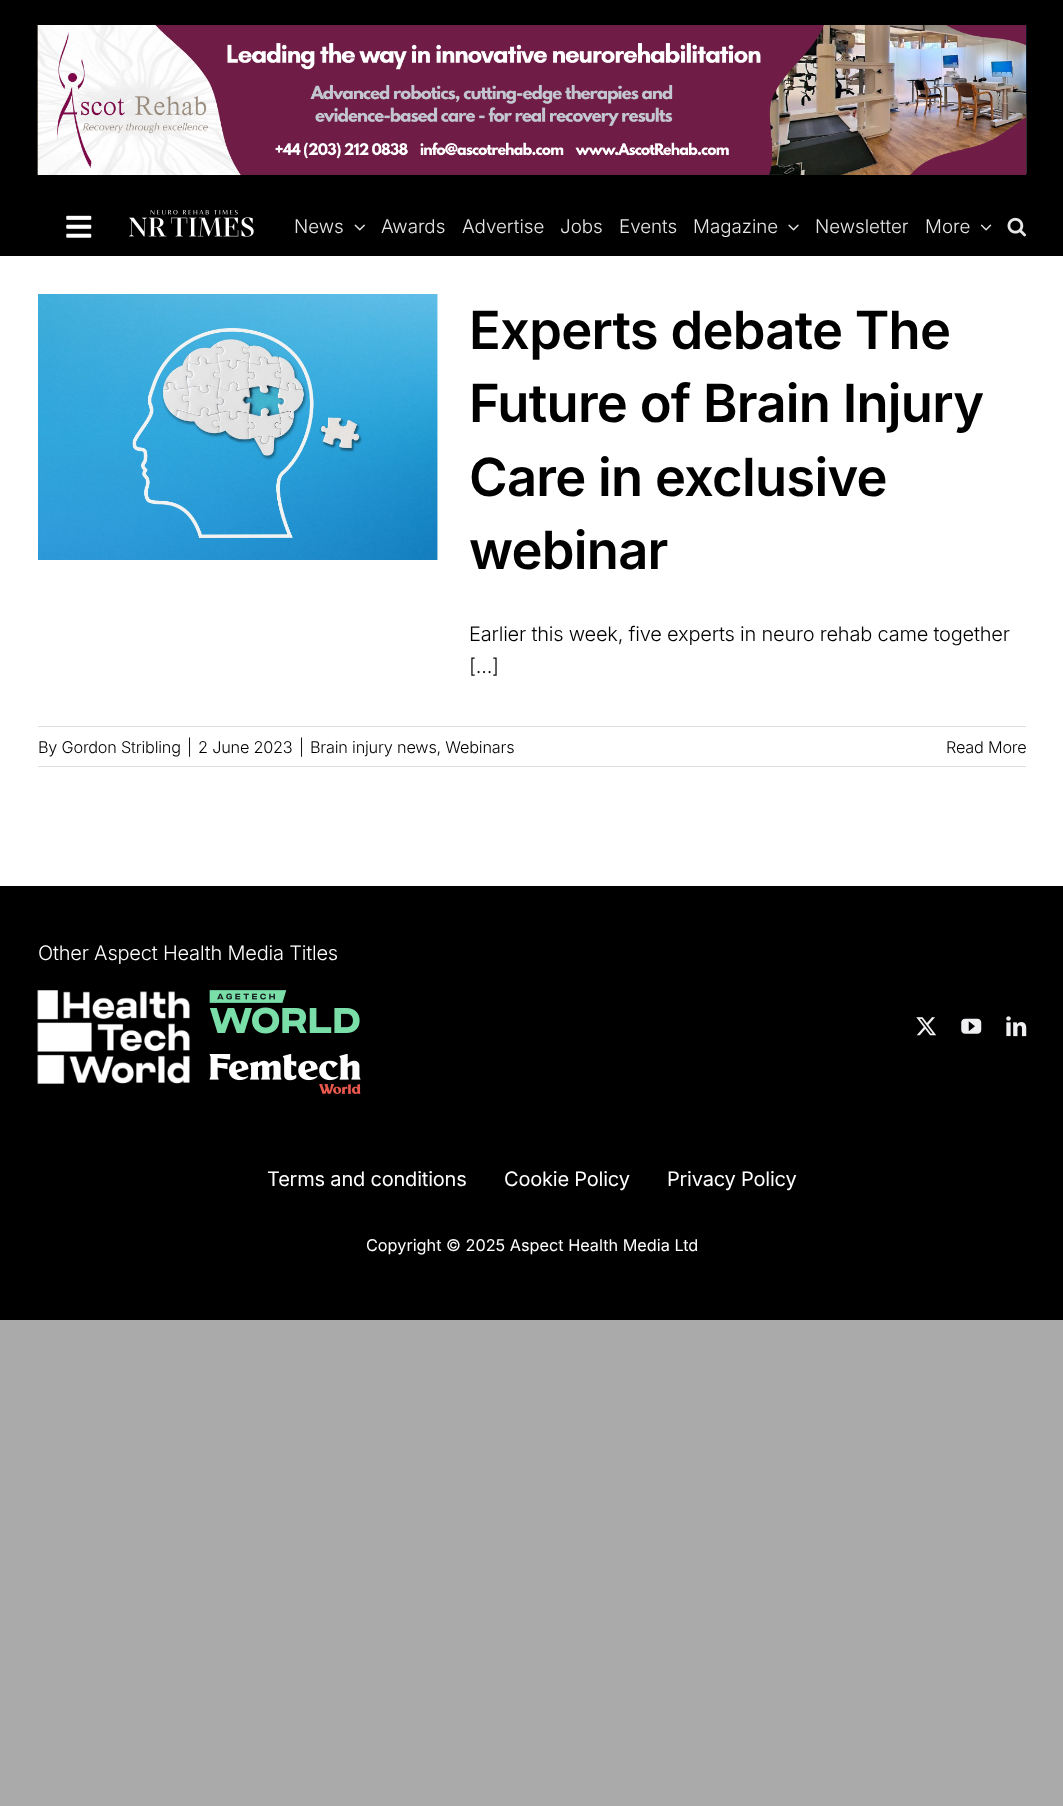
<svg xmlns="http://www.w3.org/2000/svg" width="1063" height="1806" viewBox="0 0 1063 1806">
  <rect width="100%" height="100%" fill="#aaa"/>
  <path d="M0 256h1063v630H0z" fill="#fff"/>
  <path d="M0 0h1063v256H0z" fill="#000"/>
  <image x="37" y="25" width="1" height="149" href="img/1.png"/>
  <image x="37" y="25" width="990" height="150" href="img/2.png"/>
  <image x="1026" y="25" width="1" height="149" href="img/3.png"/>
  <image x="66" y="215" width="26" height="23" href="img/4.png"/>
  <image x="129" y="210" width="125" height="27" href="img/5.png"/>
  <image x="354" y="224" width="11" height="7" href="img/6.png"/>
  <image x="788" y="224" width="11" height="7" href="img/7.png"/>
  <image x="980" y="224" width="12" height="7" href="img/8.png"/>
  <image x="1007" y="217" width="19" height="20" href="img/9.png"/>
  <image x="38" y="294" width="400" height="266" href="img/10.png"/>
  <path d="M38 726h988v1H38z" fill="#dedede"/>
  <path d="M38 766h988v1H38z" fill="#dedede"/>
  <path d="M0 886h1063v434H0z" fill="#000"/>
  <image x="37" y="990" width="153" height="94" href="img/11.png"/>
  <image x="209" y="990" width="151" height="44" href="img/12.png"/>
  <image x="209" y="1054" width="152" height="40" href="img/13.png"/>
  <image x="916" y="1017" width="21" height="19" href="img/14.png"/>
  <image x="961" y="1018" width="21" height="16" href="img/15.png"/>
  <image x="1006" y="1016" width="21" height="21" href="img/16.png"/>
  <g font-family="Inter" font-size="18.75" font-weight="300" fill="#e6e6e6">
    <text x="294" y="233">News</text>
    <text x="381" y="233">Awards</text>
    <text x="462" y="233">Advertise</text>
    <text x="560" y="233">Jobs</text>
    <text x="619" y="233">Events</text>
    <text x="693" y="233">Magazine</text>
    <text x="815" y="233">Newsletter</text>
    <text x="925" y="233">More</text>
  </g>
  <g font-family="Inter" font-size="52.5" font-weight="600" letter-spacing="-0.75" fill="#000">
    <text x="469" y="349">Experts debate The</text>
    <text x="469" y="422">Future of Brain Injury</text>
    <text x="469" y="496">Care in exclusive</text>
    <text x="469" y="569">webinar</text>
  </g>
  <g font-family="Inter" font-size="20" font-weight="300" letter-spacing="-0.2" fill="#000">
    <text x="469" y="641">Earlier this week, five experts in neuro rehab came together</text>
    <text x="469" y="673">[...]</text>
  </g>
  <g font-family="Inter" font-size="16.25" font-weight="300" letter-spacing="-0.2" fill="#000">
    <text x="38" y="753">By Gordon Stribling</text>
    <text x="187" y="753">|</text>
    <text x="198" y="753">2 June 2023</text>
    <text x="299" y="753">|</text>
    <text x="310" y="753">Brain injury news, Webinars</text>
    <text x="946" y="753">Read More</text>
  </g>
  <text x="38" y="960" font-family="Inter" font-size="20" font-weight="300" letter-spacing="-0.2" fill="#fff">Other Aspect Health Media Titles</text>
  <g font-family="Inter" font-size="20" letter-spacing="-0.2" fill="#fff">
    <text x="267" y="1186">Terms and conditions</text>
    <text x="504" y="1186">Cookie Policy</text>
    <text x="667" y="1186">Privacy Policy</text>
  </g>
  <text x="366" y="1251" font-family="Inter" font-size="16.25" fill="#fff">Copyright © 2025 Aspect Health Media Ltd</text>
</svg>
